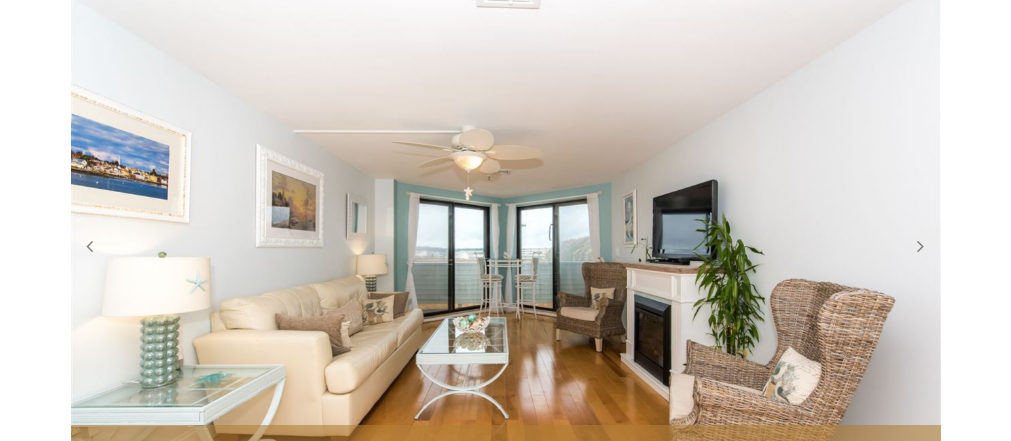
<svg xmlns="http://www.w3.org/2000/svg" width="1011" height="441" viewBox="0 0 1011 441">
  <rect width="100%" height="100%" fill="#fff"/>
  <image x="71" y="0" width="870" height="441" href="img/1.png"/>
  <path d="M71 425h870v16H71z" fill="#b07e3794"/>
  <image x="86" y="241" width="7" height="11" href="img/2.png"/>
  <image x="917" y="241" width="7" height="11" href="img/3.png"/>
</svg>
